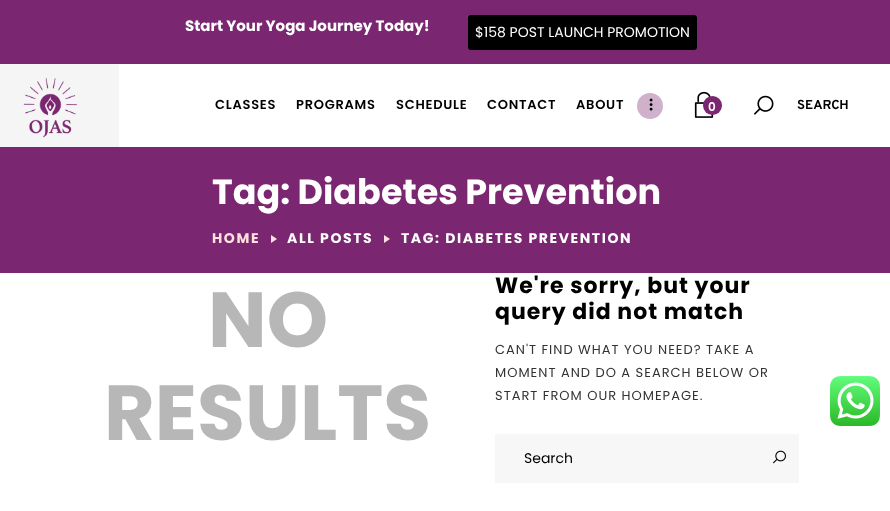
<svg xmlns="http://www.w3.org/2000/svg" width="890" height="511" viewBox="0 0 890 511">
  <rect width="100%" height="100%" fill="#fff"/>
  <path d="M0 0h890v64H0z" fill="#7b2671"/>
  <rect x="468" y="15" width="229" height="35" rx="3" fill="#000"/>
  <path d="M0 64h119v83H0z" fill="#f5f5f5"/>
  <image x="23" y="78" width="54" height="60" href="img/1.png"/>
  <circle cx="650" cy="106" r="13" fill="#cfb1cc"/>
  <image x="649" y="98" width="4" height="13" href="img/2.png"/>
  <image x="694" y="91" width="20" height="27" href="img/3.png"/>
  <circle cx="712.5" cy="105.5" r="9.5" fill="#7b2671"/>
  <image x="754" y="95" width="20" height="20" href="img/4.png"/>
  <path d="M0 147h890v126H0z" fill="#7b2671"/>
  <path d="M271 243V235L277 239Z" fill="#ffe1dd"/>
  <path d="M384 243V235L390 239Z" fill="#ffe1dd"/>
  <path d="M495 434h304v49H495z" fill="#f7f7f7"/>
  <image x="773" y="450" width="13" height="14" href="img/5.png"/>
  <image x="830" y="376" width="50" height="50" href="img/6.png"/>
  <text x="185" y="31" font-family="Poppins" font-size="15" font-weight="bold" fill="#fff">Start Your Yoga Journey Today!</text>
  <text x="475" y="37" font-family="Poppins" font-size="14" fill="#fff">$158 POST LAUNCH PROMOTION</text>
  <g font-family="Poppins" font-size="13" font-weight="600" letter-spacing="0.75" fill="#000">
    <text x="215" y="109">CLASSES</text>
    <text x="296" y="109">PROGRAMS</text>
    <text x="396" y="109">SCHEDULE</text>
    <text x="487" y="109">CONTACT</text>
    <text x="576" y="109">ABOUT</text>
  </g>
  <text x="708" y="111" font-family="Poppins" font-size="12" font-weight="600" fill="#fff">0</text>
  <text x="797" y="109" font-family="Overpass" font-size="13" font-weight="bold" fill="#000">SEARCH</text>
  <text x="212" y="204" font-family="Poppins" font-size="35" font-weight="bold" fill="#fff">Tag: Diabetes Prevention</text>
  <text x="212" y="243" font-family="Poppins" font-size="14" font-weight="bold" letter-spacing="1.6" fill="#ffe1dd">HOME</text>
  <g font-family="Poppins" font-size="14" font-weight="bold" letter-spacing="1.6" fill="#fff">
    <text x="287" y="243">ALL POSTS</text>
    <text x="401" y="243">TAG: DIABETES PREVENTION</text>
  </g>
  <g font-family="Poppins" font-size="78" font-weight="bold" fill="#b7b7b7">
    <text x="208" y="347">NO</text>
    <text x="104" y="440">RESULTS</text>
  </g>
  <g font-family="Poppins" font-size="22" font-weight="bold" letter-spacing="1" fill="#000">
    <text x="495" y="293">We're sorry, but your</text>
    <text x="495" y="319">query did not match</text>
  </g>
  <g font-family="Poppins" font-size="13" letter-spacing="1" fill="#333">
    <text x="495" y="354">CAN'T FIND WHAT YOU NEED? TAKE A</text>
    <text x="495" y="377">MOMENT AND DO A SEARCH BELOW OR</text>
    <text x="495" y="400">START FROM OUR HOMEPAGE.</text>
  </g>
  <text x="524" y="463" font-family="Poppins" font-size="14" fill="#000">Search</text>
</svg>
